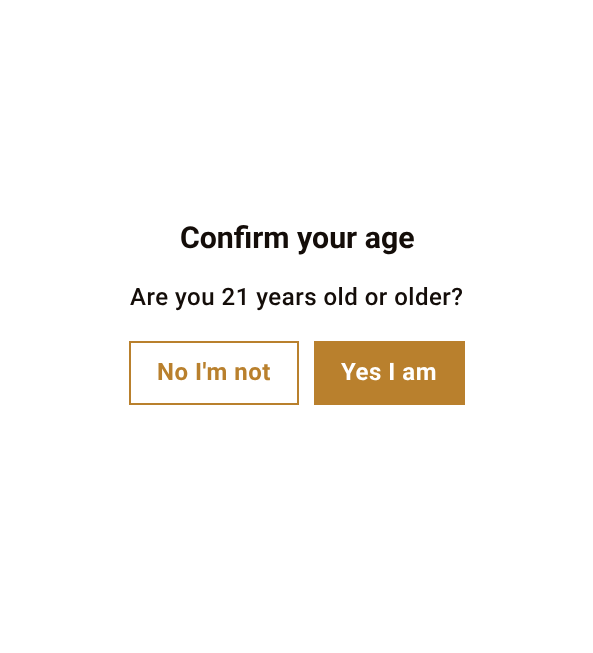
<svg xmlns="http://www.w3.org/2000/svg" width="593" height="653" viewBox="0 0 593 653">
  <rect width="100%" height="100%" fill="#fff"/>
  <path d="M130 342h168v62H130z" fill="none" stroke="#b9802d" stroke-width="2"/>
  <path d="M314 341h151v64H314z" fill="#b9802d"/>
  <text x="180" y="248" font-family="Roboto" font-size="30.25" font-weight="bold" fill="#140d09">Confirm your age</text>
  <text x="130" y="305" font-family="Roboto" font-size="24" font-weight="500" letter-spacing="0.5" fill="#140d09">Are you 21 years old or older?</text>
  <text x="157" y="380" font-family="Roboto" font-size="24" font-weight="bold" letter-spacing="0.5" fill="#b9802d">No I'm not</text>
  <text x="341" y="380" font-family="Roboto" font-size="24" font-weight="bold" letter-spacing="0.5" fill="#fff">Yes I am</text>
</svg>
